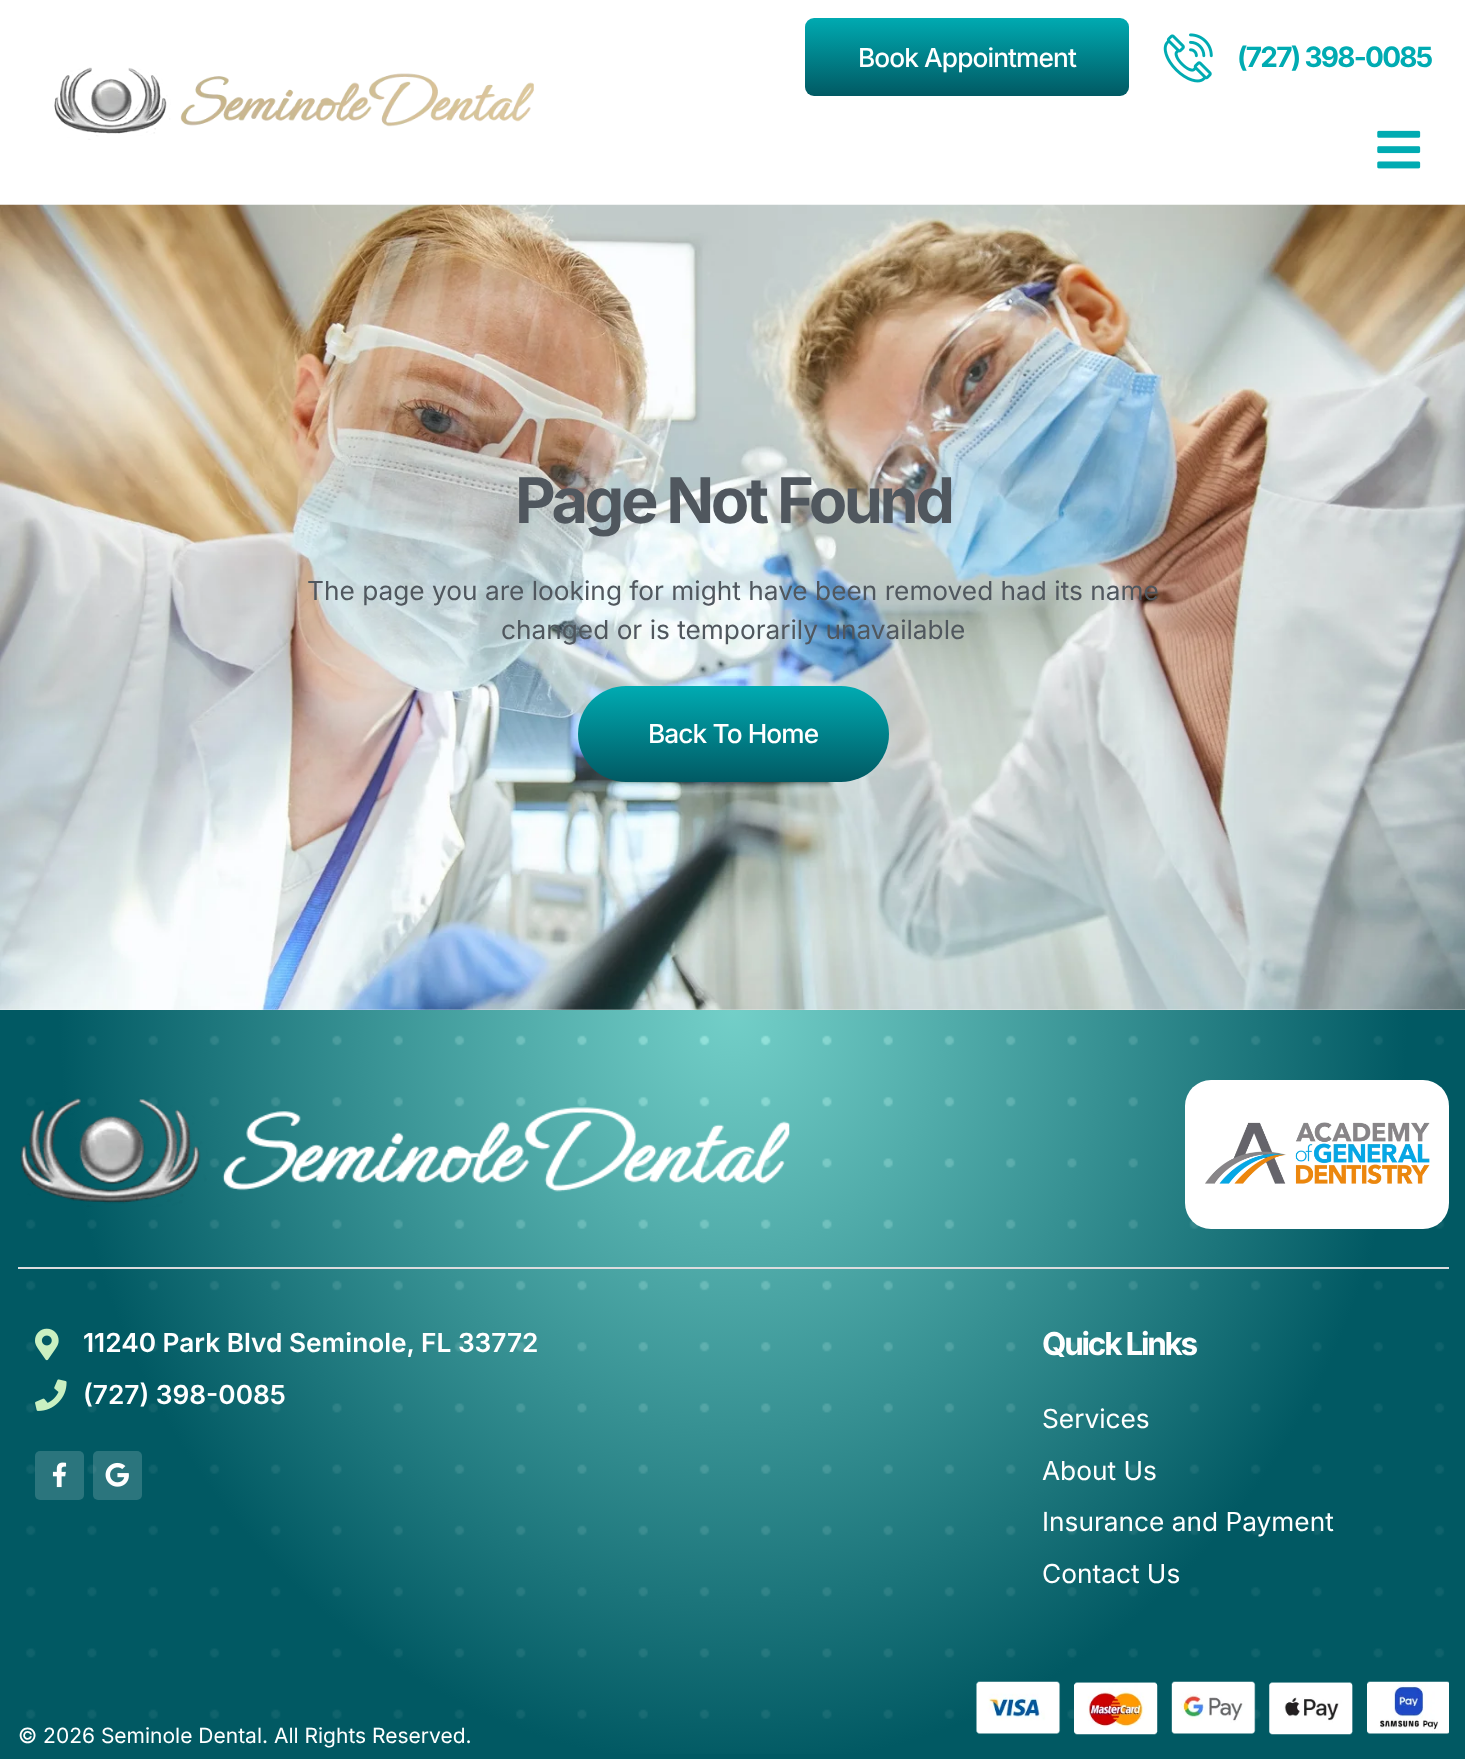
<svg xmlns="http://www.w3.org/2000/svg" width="1465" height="1759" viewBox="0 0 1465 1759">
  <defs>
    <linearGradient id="g1" gradientUnits="userSpaceOnUse" x1="967" y1="17" x2="967" y2="96"><stop offset="0" stop-color="#00abb2"/><stop offset="1" stop-color="#015963"/></linearGradient>
    <linearGradient id="g2" gradientUnits="userSpaceOnUse" x1="733" y1="686" x2="733" y2="782"><stop offset="0" stop-color="#00abb2"/><stop offset="1" stop-color="#015963"/></linearGradient>
    <radialGradient id="g3" gradientUnits="userSpaceOnUse" cx="0" cy="0" r="1" gradientTransform="matrix(1037 0 0 1166 733 1010)"><stop offset="0" stop-color="#87e4da" stop-opacity="0.85"/><stop offset="0.65" stop-color="#015963" stop-opacity="0.94"/></radialGradient>
  </defs>
  <rect width="100%" height="100%" fill="#fff"/>
  <rect x="805" y="18" width="324" height="78" rx="9" fill="url(#g1)"/>
  <image x="1163" y="33" width="50" height="50" href="img/1.png"/>
  <image x="1377" y="130" width="44" height="39" href="img/2.png"/>
  <image x="54" y="67" width="480" height="73" href="img/3.png"/>
  <image x="0" y="204" width="1465" height="806" href="img/4.png"/>
  <rect x="578" y="686" width="311" height="96" rx="48" fill="url(#g2)"/>
  <path d="M0 1010h1465v749H0z" fill="#015963"/>
  <image x="25" y="1035" width="1420" height="684" href="img/5.png"/>
  <path d="M25 1010h1420v744H25z" fill="url(#g3)"/>
  <image x="20" y="1098" width="770" height="109" href="img/6.png"/>
  <rect x="1185" y="1080" width="264" height="149" rx="26" fill="#fff"/>
  <image x="1205" y="1122" width="225" height="62" href="img/7.png"/>
  <path d="M18 1267h1431v2H18z" fill="#dcdcde"/>
  <image x="35" y="1328" width="24" height="33" href="img/8.png"/>
  <image x="35" y="1379" width="32" height="32" href="img/9.png"/>
  <rect x="35" y="1451" width="49" height="49" rx="5" fill="#ffffff2b"/>
  <image x="52" y="1462" width="15" height="26" href="img/10.png"/>
  <rect x="93" y="1451" width="49" height="49" rx="5" fill="#ffffff2b"/>
  <image x="105" y="1462" width="24" height="25" href="img/11.png"/>
  <image x="976" y="1681" width="473" height="54" href="img/12.png"/>
  <text x="858" y="67" font-family="Inter" font-size="26.25" font-weight="500" letter-spacing="-0.9" fill="#fff">Book Appointment</text>
  <text x="1237" y="67" font-family="Inter" font-size="28" font-weight="bold" letter-spacing="-1.75" fill="#00abb2">(727) 398-0085</text>
  <text x="515" y="523" font-family="Inter" font-size="63" font-weight="bold" letter-spacing="-3.5" fill="#50575e">Page Not Found</text>
  <g font-family="Inter" font-size="26.25" fill="#50575e">
    <text x="307" y="600">The page you are looking for might have been removed had its name</text>
    <text x="501" y="639">changed or is temporarily unavailable</text>
  </g>
  <text x="648" y="743" font-family="Inter" font-size="26.25" font-weight="500" letter-spacing="-0.9" fill="#fff">Back To Home</text>
  <g font-family="Inter" font-size="26.25" font-weight="600" fill="#fff">
    <text x="83" y="1352">11240 Park Blvd Seminole, FL 33772</text>
    <text x="83" y="1404">(727) 398-0085</text>
  </g>
  <text x="1042" y="1355" font-family="Inter" font-size="31.5" font-weight="bold" letter-spacing="-2.25" fill="#fff">Quick Links</text>
  <g font-family="Inter" font-size="26.25" fill="#fff">
    <text x="1042" y="1428">Services</text>
    <text x="1042" y="1480">About Us</text>
    <text x="1042" y="1531">Insurance and Payment</text>
    <text x="1042" y="1583">Contact Us</text>
  </g>
  <text x="18" y="1743" font-family="Inter" font-size="21" fill="#fff">© 2026 Seminole Dental. All Rights Reserved.</text>
</svg>
